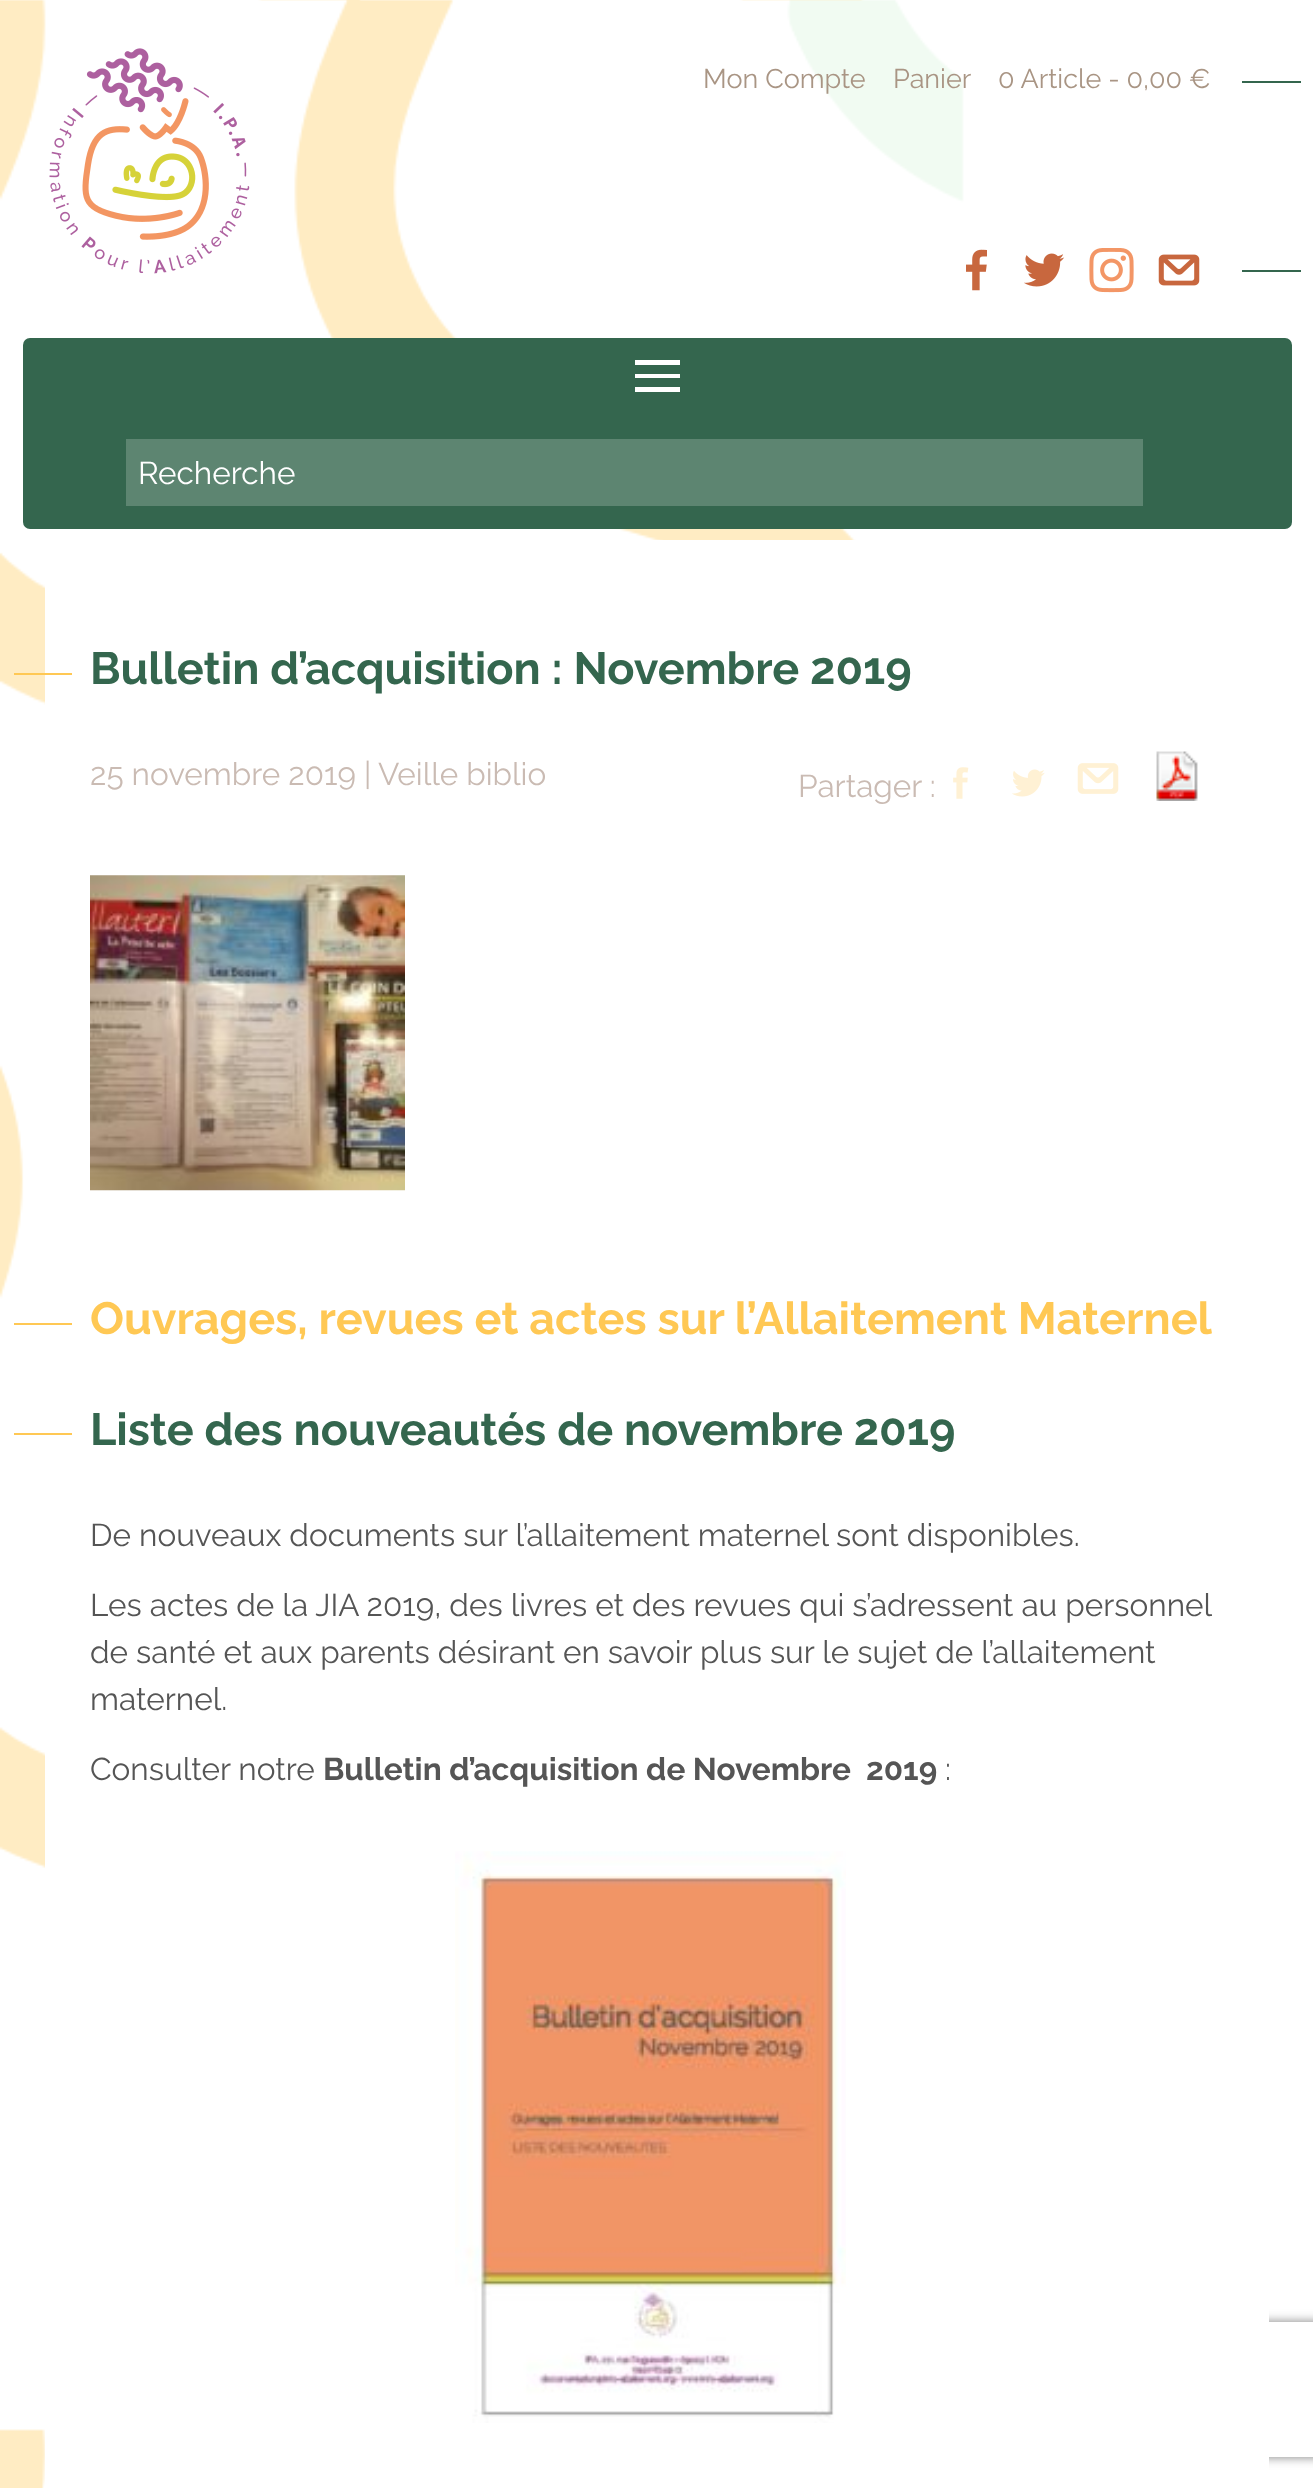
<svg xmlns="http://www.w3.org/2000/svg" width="1313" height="2488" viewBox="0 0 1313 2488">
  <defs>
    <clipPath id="clip1"><path d="M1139 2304H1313V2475H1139ZM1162 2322H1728C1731 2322 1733 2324 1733 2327V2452C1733 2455 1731 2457 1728 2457H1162C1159 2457 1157 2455 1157 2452V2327C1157 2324 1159 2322 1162 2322Z" clip-rule="evenodd"/></clipPath>
  </defs>
  <rect width="100%" height="100%" fill="#fff"/>
  <image x="0" y="0" width="1313" height="2488" href="img/1.png"/>
  <image x="49" y="48" width="201" height="226" href="img/2.png"/>
  <path d="M1242 81h59v2H1242z" fill="#34664e"/>
  <image x="966" y="249" width="21" height="42" href="img/3.png"/>
  <image x="1024" y="253" width="41" height="34" href="img/4.png"/>
  <image x="1089" y="248" width="45" height="45" href="img/5.png"/>
  <image x="1158" y="254" width="42" height="32" href="img/6.png"/>
  <path d="M1242 270h59v2H1242z" fill="#34664e"/>
  <rect x="23" y="338" width="1269" height="191" rx="7" fill="#34664e"/>
  <path d="M635 360h45v5H635z" fill="#fff"/>
  <path d="M635 374h45v4H635z" fill="#fff"/>
  <path d="M635 387h45v5H635z" fill="#fff"/>
  <path d="M126 439h1017v67H126z" fill="#5d8571"/>
  <g clip-path="url(#clip1)">
    <rect x="1157" y="2322" width="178" height="135" rx="5" fill="#808080" filter="blur(5.5px)"/>
  </g>
  <rect x="45" y="540" width="1224" height="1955" rx="7" fill="#fff"/>
  <path d="M14 673h58v2H14z" fill="#ffc854"/>
  <image x="953" y="767" width="16" height="32" href="img/7.png"/>
  <image x="1012" y="769" width="33" height="28" href="img/8.png"/>
  <image x="1077" y="763" width="42" height="31" href="img/9.png"/>
  <image x="1156" y="751" width="42" height="50" href="img/10.png"/>
  <image x="90" y="875" width="315" height="316" href="img/11.png"/>
  <path d="M14 1323h58v2H14z" fill="#ffc854"/>
  <path d="M14 1433h58v2H14z" fill="#ffc854"/>
  <image x="455" y="1851" width="391" height="572" href="img/12.png"/>
  <g font-family="Raleway" font-size="27" fill="#a99584">
    <text x="703" y="88">Mon Compte</text>
    <text x="893" y="88">Panier</text>
    <text x="998" y="88">0 Article - 0,00 €</text>
  </g>
  <text x="138" y="484" font-family="Raleway" font-size="31.5" fill="#fff">Recherche</text>
  <text x="90" y="684" font-family="Raleway" font-size="45" font-weight="bold" fill="#34664e">Bulletin d’acquisition : Novembre 2019</text>
  <g font-family="Raleway" font-size="31.5" fill="#cabbb3">
    <text x="90" y="785">25 novembre 2019 |</text>
    <text x="378" y="785">Veille biblio</text>
    <text x="798" y="797">Partager :</text>
  </g>
  <text x="90" y="1334" font-family="Raleway" font-size="45" font-weight="bold" fill="#ffc854">Ouvrages, revues et actes sur l’Allaitement Maternel</text>
  <text x="90" y="1445" font-family="Raleway" font-size="45" font-weight="bold" fill="#34664e">Liste des nouveautés de novembre 2019</text>
  <g font-family="Raleway" font-size="31.5" fill="#555">
    <text x="90" y="1546">De nouveaux documents sur l’allaitement maternel sont disponibles.</text>
    <text x="90" y="1616">Les actes de la JIA 2019, des livres et des revues qui s’adressent au personnel</text>
    <text x="90" y="1663">de santé et aux parents désirant en savoir plus sur le sujet de l’allaitement</text>
    <text x="90" y="1710">maternel.</text>
    <text x="90" y="1780">Consulter notre</text>
  </g>
  <text x="323" y="1780" font-family="Raleway" font-size="31.5" font-weight="bold" fill="#555" xml:space="preserve">Bulletin d’acquisition de Novembre  2019</text>
  <text x="945" y="1780" font-family="Raleway" font-size="31.5" fill="#555">:</text>
</svg>
